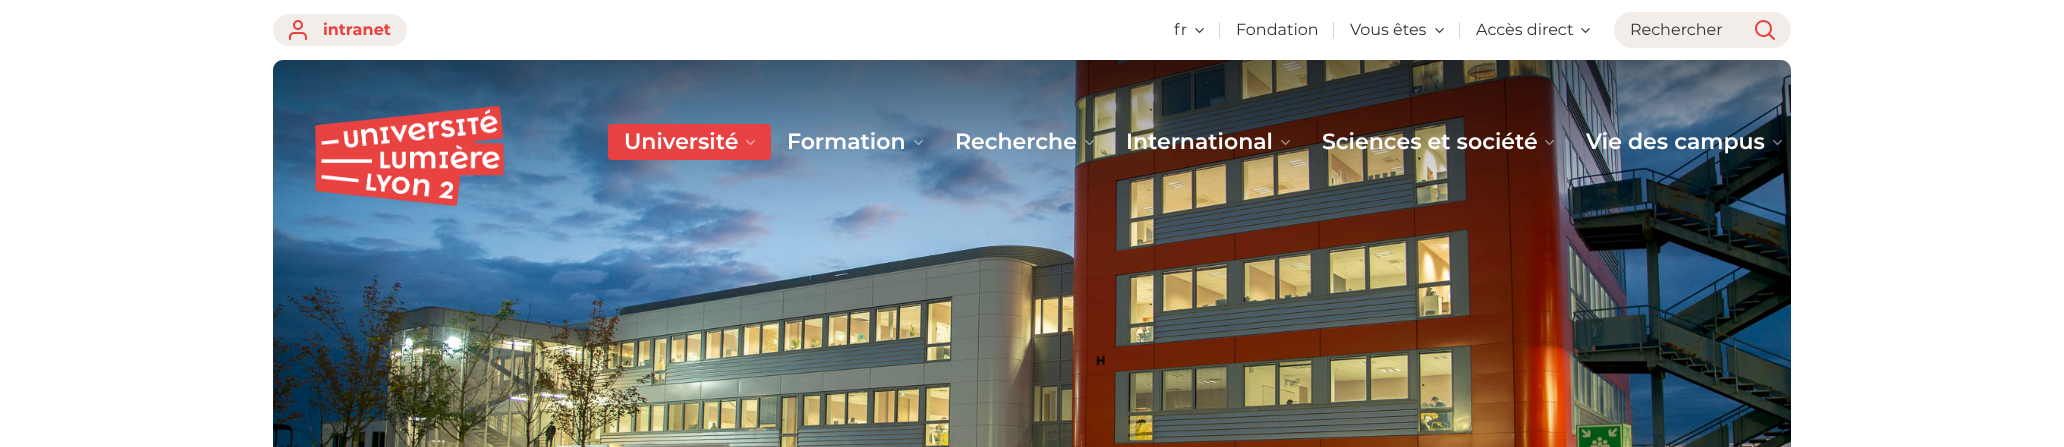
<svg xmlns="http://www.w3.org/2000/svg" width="2064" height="447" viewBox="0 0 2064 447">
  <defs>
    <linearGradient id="g1" gradientUnits="userSpaceOnUse" x1="1032" y1="60" x2="1032" y2="260"><stop offset="0" stop-color="#000" stop-opacity="0.5"/><stop offset="0.19" stop-color="#000" stop-opacity="0.37"/><stop offset="0.34" stop-color="#000" stop-opacity="0.27"/><stop offset="0.47" stop-color="#000" stop-opacity="0.19"/><stop offset="0.56" stop-color="#000" stop-opacity="0.14"/><stop offset="0.65" stop-color="#000" stop-opacity="0.1"/><stop offset="0.73" stop-color="#000" stop-opacity="0.06"/><stop offset="0.8" stop-color="#000" stop-opacity="0.04"/><stop offset="0.86" stop-color="#000" stop-opacity="0.02"/><stop offset="0.91" stop-color="#000" stop-opacity="0.01"/><stop offset="0.95" stop-color="#000" stop-opacity="0"/><stop offset="0.98" stop-color="#000" stop-opacity="0"/><stop offset="1" stop-color="#000" stop-opacity="0"/></linearGradient>
  </defs>
  <rect width="100%" height="100%" fill="#fff"/>
  <rect x="273" y="14" width="134" height="32" rx="16" fill="#f3edea"/>
  <image x="289" y="20" width="18" height="20" href="img/1.png"/>
  <image x="1195" y="28" width="9" height="5" href="img/2.png"/>
  <path d="M1219 22h1v16H1219z" fill="#d6d6d6"/>
  <path d="M1333 22h1v16H1333z" fill="#d6d6d6"/>
  <image x="1435" y="28" width="9" height="5" href="img/2.png"/>
  <path d="M1459 22h1v16H1459z" fill="#d6d6d6"/>
  <image x="1581" y="28" width="9" height="5" href="img/2.png"/>
  <rect x="1614" y="12" width="177" height="36" rx="18" fill="#f3edea"/>
  <image x="1755" y="20" width="20" height="20" href="img/3.png"/>
  <rect x="273" y="60" width="1518" height="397" rx="10" fill="#f3edea"/>
  <image x="273" y="60" width="1518" height="387" href="img/4.png"/>
  <rect x="273" y="60" width="1518" height="200" rx="10" fill="url(#g1)"/>
  <image x="314" y="105" width="191" height="101" href="img/5.png"/>
  <rect x="608" y="124" width="163" height="36" rx="4" fill="#e84141"/>
  <image x="746" y="140" width="9" height="5" href="img/6.png"/>
  <image x="914" y="140" width="9" height="5" href="img/7.png"/>
  <image x="1085" y="140" width="9" height="5" href="img/8.png"/>
  <image x="1281" y="140" width="9" height="5" href="img/9.png"/>
  <image x="1545" y="140" width="9" height="5" href="img/10.png"/>
  <image x="1773" y="140" width="9" height="5" href="img/11.png"/>
  <text x="323" y="35" font-family="Montserrat" font-size="16" font-weight="bold" fill="#e84141">intranet</text>
  <g font-family="Montserrat" font-size="16" fill="#333">
    <text x="1174" y="35">fr</text>
    <text x="1236" y="35">Fondation</text>
    <text x="1350" y="35">Vous êtes</text>
    <text x="1476" y="35">Accès direct</text>
    <text x="1630" y="35">Rechercher</text>
  </g>
  <g font-family="Montserrat" font-size="22" font-weight="600" fill="#fff">
    <text x="624" y="149">Université</text>
    <text x="787" y="149">Formation</text>
    <text x="955" y="149">Recherche</text>
    <text x="1126" y="149">International</text>
    <text x="1322" y="149">Sciences et société</text>
    <text x="1586" y="149">Vie des campus</text>
  </g>
</svg>
